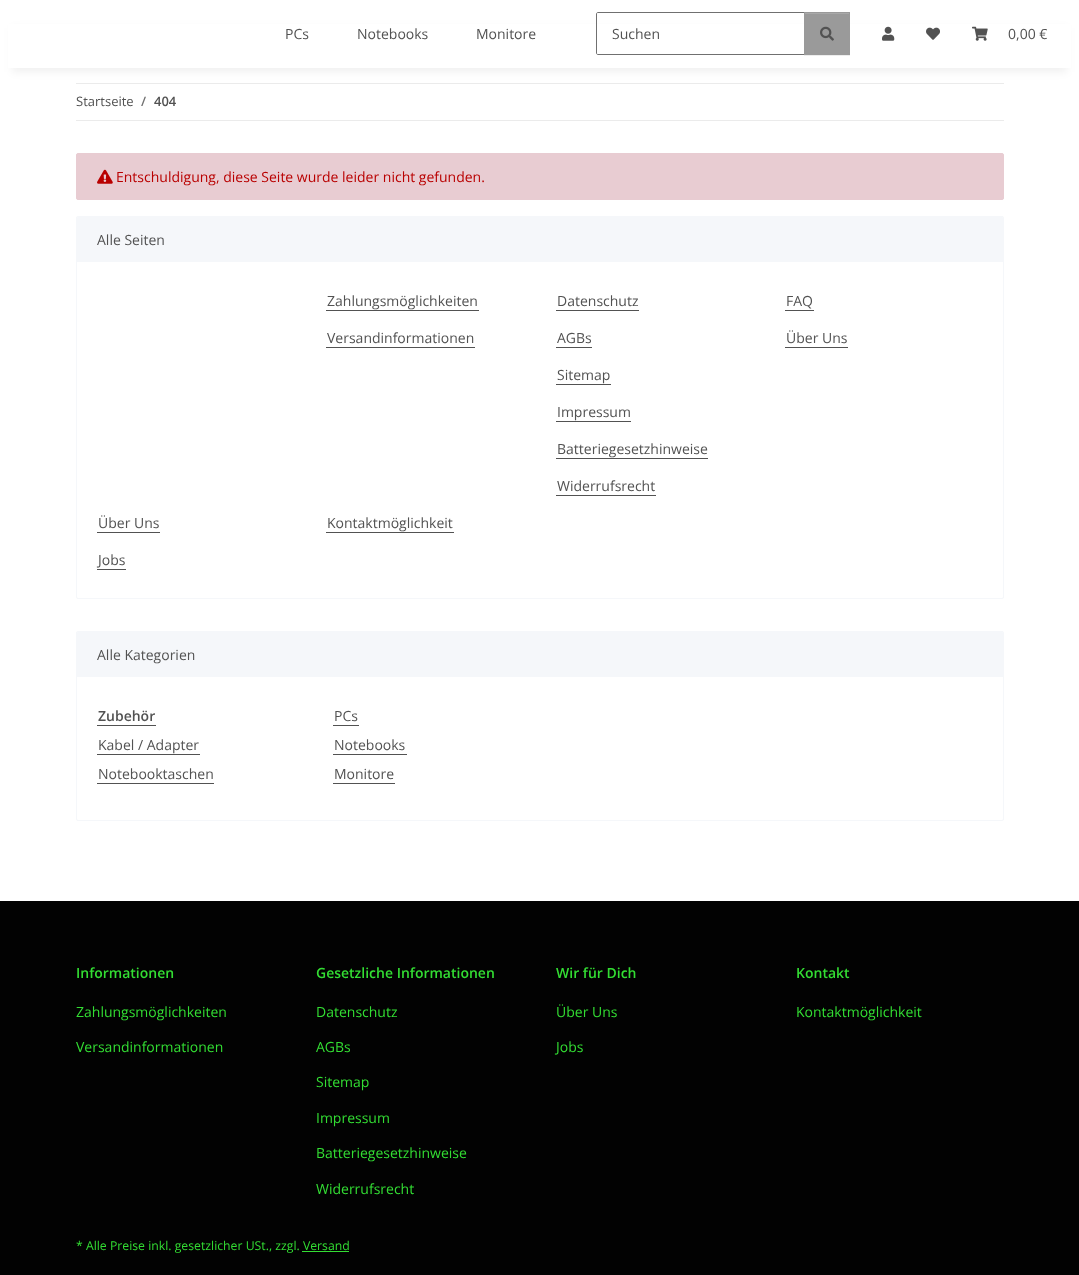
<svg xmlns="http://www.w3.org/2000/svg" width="1079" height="1275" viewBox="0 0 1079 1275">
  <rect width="100%" height="100%" fill="#fff"/>
  <path d="M76 83h928v1H76z" fill="#ebebeb"/>
  <path d="M12 28h1055v44H12z" fill="#0000000f" filter="blur(4.5px)"/>
  <path d="M8 24h1063v44H8z" fill="#fff"/>
  <path d="M598 12.5H804.5V54.5H598C597 54.5 596.5 54 596.5 53V14C596.5 13 597 12.5 598 12.5Z" fill="none" stroke="#707070"/>
  <path d="M804 13h46v43H804z" fill="#00000012" filter="blur(0.5px)"/>
  <path d="M804 12h46v43H804z" fill="#9a9a9a"/>
  <path d="M805 13h44v1H805z" fill="#a9a9a9"/>
  <image x="820" y="26" width="14" height="15" href="img/1.png"/>
  <image x="882" y="26" width="13" height="15" href="img/2.png"/>
  <image x="926" y="27" width="14" height="13" href="img/3.png"/>
  <image x="972" y="26" width="16" height="15" href="img/4.png"/>
  <path d="M76 120h928v1H76z" fill="#ebebeb"/>
  <rect x="76.5" y="153.5" width="927" height="46" rx="1.5" fill="#e8ccd2" stroke="#e8ccd2"/>
  <image x="97" y="169" width="16" height="15" href="img/5.png"/>
  <rect x="76.5" y="216.5" width="927" height="382" rx="1.5" fill="none" stroke="#f5f7fa"/>
  <path d="M78 217H1002C1002.5 217 1003 217.5 1003 218V262H77V218C77 217.5 77.5 217 78 217Z" fill="#f5f7fa"/>
  <path d="M326 310h153v1H326z" fill="#525252"/>
  <path d="M326 347h149v1H326z" fill="#525252"/>
  <path d="M556 310h83v1H556z" fill="#525252"/>
  <path d="M556 347h36v1H556z" fill="#525252"/>
  <path d="M556 384h55v1H556z" fill="#525252"/>
  <path d="M556 421h75v1H556z" fill="#525252"/>
  <path d="M556 458h152v1H556z" fill="#525252"/>
  <path d="M556 495h100v1H556z" fill="#525252"/>
  <path d="M785 310h29v1H785z" fill="#525252"/>
  <path d="M785 347h63v1H785z" fill="#525252"/>
  <path d="M97 532h63v1H97z" fill="#525252"/>
  <path d="M97 569h29v1H97z" fill="#525252"/>
  <path d="M326 532h128v1H326z" fill="#525252"/>
  <rect x="76.5" y="631.5" width="927" height="189" rx="1.5" fill="none" stroke="#f5f7fa"/>
  <path d="M78 632H1002C1002.5 632 1003 632.5 1003 633V677H77V633C77 632.5 77.5 632 78 632Z" fill="#f5f7fa"/>
  <path d="M97 725h59v1H97z" fill="#525252"/>
  <path d="M97 754h103v1H97z" fill="#525252"/>
  <path d="M97 783h117v1H97z" fill="#525252"/>
  <path d="M333 725h26v1H333z" fill="#525252"/>
  <path d="M333 754h74v1H333z" fill="#525252"/>
  <path d="M333 783h62v1H333z" fill="#525252"/>
  <path d="M0 901h1079v374H0z" fill="#020202"/>
  <path d="M302 1251h47v1H302z" fill="#3d3"/>
  <g font-family="Open Sans" font-size="14" fill="#525252">
    <text x="285" y="39">PCs</text>
    <text x="357" y="39">Notebooks</text>
    <text x="476" y="39">Monitore</text>
    <text x="612" y="39">Suchen</text>
    <text x="1008" y="39">0,00 €</text>
  </g>
  <text x="76" y="106" font-family="Open Sans" font-size="13" fill="#525252">Startseite</text>
  <text x="141" y="106" font-family="Open Sans" font-size="13" font-weight="600" fill="#707070">/</text>
  <text x="154" y="106" font-family="Open Sans" font-size="13" font-weight="600" fill="#525252">404</text>
  <text x="116" y="182" font-family="Open Sans" font-size="14" fill="#b90000">Entschuldigung, diese Seite wurde leider nicht gefunden.</text>
  <g font-family="Open Sans" font-size="14" fill="#525252">
    <text x="97" y="245">Alle Seiten</text>
    <text x="327" y="306">Zahlungsmöglichkeiten</text>
    <text x="327" y="343">Versandinformationen</text>
    <text x="557" y="306">Datenschutz</text>
    <text x="557" y="343">AGBs</text>
    <text x="557" y="380">Sitemap</text>
    <text x="557" y="417">Impressum</text>
    <text x="557" y="454">Batteriegesetzhinweise</text>
    <text x="557" y="491">Widerrufsrecht</text>
    <text x="786" y="306">FAQ</text>
    <text x="786" y="343">Über Uns</text>
    <text x="98" y="528">Über Uns</text>
    <text x="98" y="565">Jobs</text>
    <text x="327" y="528">Kontaktmöglichkeit</text>
    <text x="97" y="660">Alle Kategorien</text>
  </g>
  <text x="98" y="721" font-family="Open Sans" font-size="14" font-weight="600" fill="#525252">Zubehör</text>
  <g font-family="Open Sans" font-size="14" fill="#525252">
    <text x="98" y="750">Kabel / Adapter</text>
    <text x="98" y="779">Notebooktaschen</text>
    <text x="334" y="721">PCs</text>
    <text x="334" y="750">Notebooks</text>
    <text x="334" y="779">Monitore</text>
  </g>
  <text x="76" y="978" font-family="Open Sans" font-size="14" font-weight="600" fill="#3d3">Informationen</text>
  <g font-family="Open Sans" font-size="14" fill="#3d3">
    <text x="76" y="1017">Zahlungsmöglichkeiten</text>
    <text x="76" y="1052">Versandinformationen</text>
  </g>
  <text x="316" y="978" font-family="Open Sans" font-size="14" font-weight="600" fill="#3d3">Gesetzliche Informationen</text>
  <g font-family="Open Sans" font-size="14" fill="#3d3">
    <text x="316" y="1017">Datenschutz</text>
    <text x="316" y="1052">AGBs</text>
    <text x="316" y="1087">Sitemap</text>
    <text x="316" y="1123">Impressum</text>
    <text x="316" y="1158">Batteriegesetzhinweise</text>
    <text x="316" y="1194">Widerrufsrecht</text>
  </g>
  <text x="556" y="978" font-family="Open Sans" font-size="14" font-weight="600" fill="#3d3">Wir für Dich</text>
  <g font-family="Open Sans" font-size="14" fill="#3d3">
    <text x="556" y="1017">Über Uns</text>
    <text x="556" y="1052">Jobs</text>
  </g>
  <text x="796" y="978" font-family="Open Sans" font-size="14" font-weight="600" fill="#3d3">Kontakt</text>
  <text x="796" y="1017" font-family="Open Sans" font-size="14" fill="#3d3">Kontaktmöglichkeit</text>
  <text x="76" y="1250" font-family="Open Sans" font-size="12.25" fill="#3d3">* Alle Preise inkl. gesetzlicher USt., zzgl. Versand</text>
</svg>
